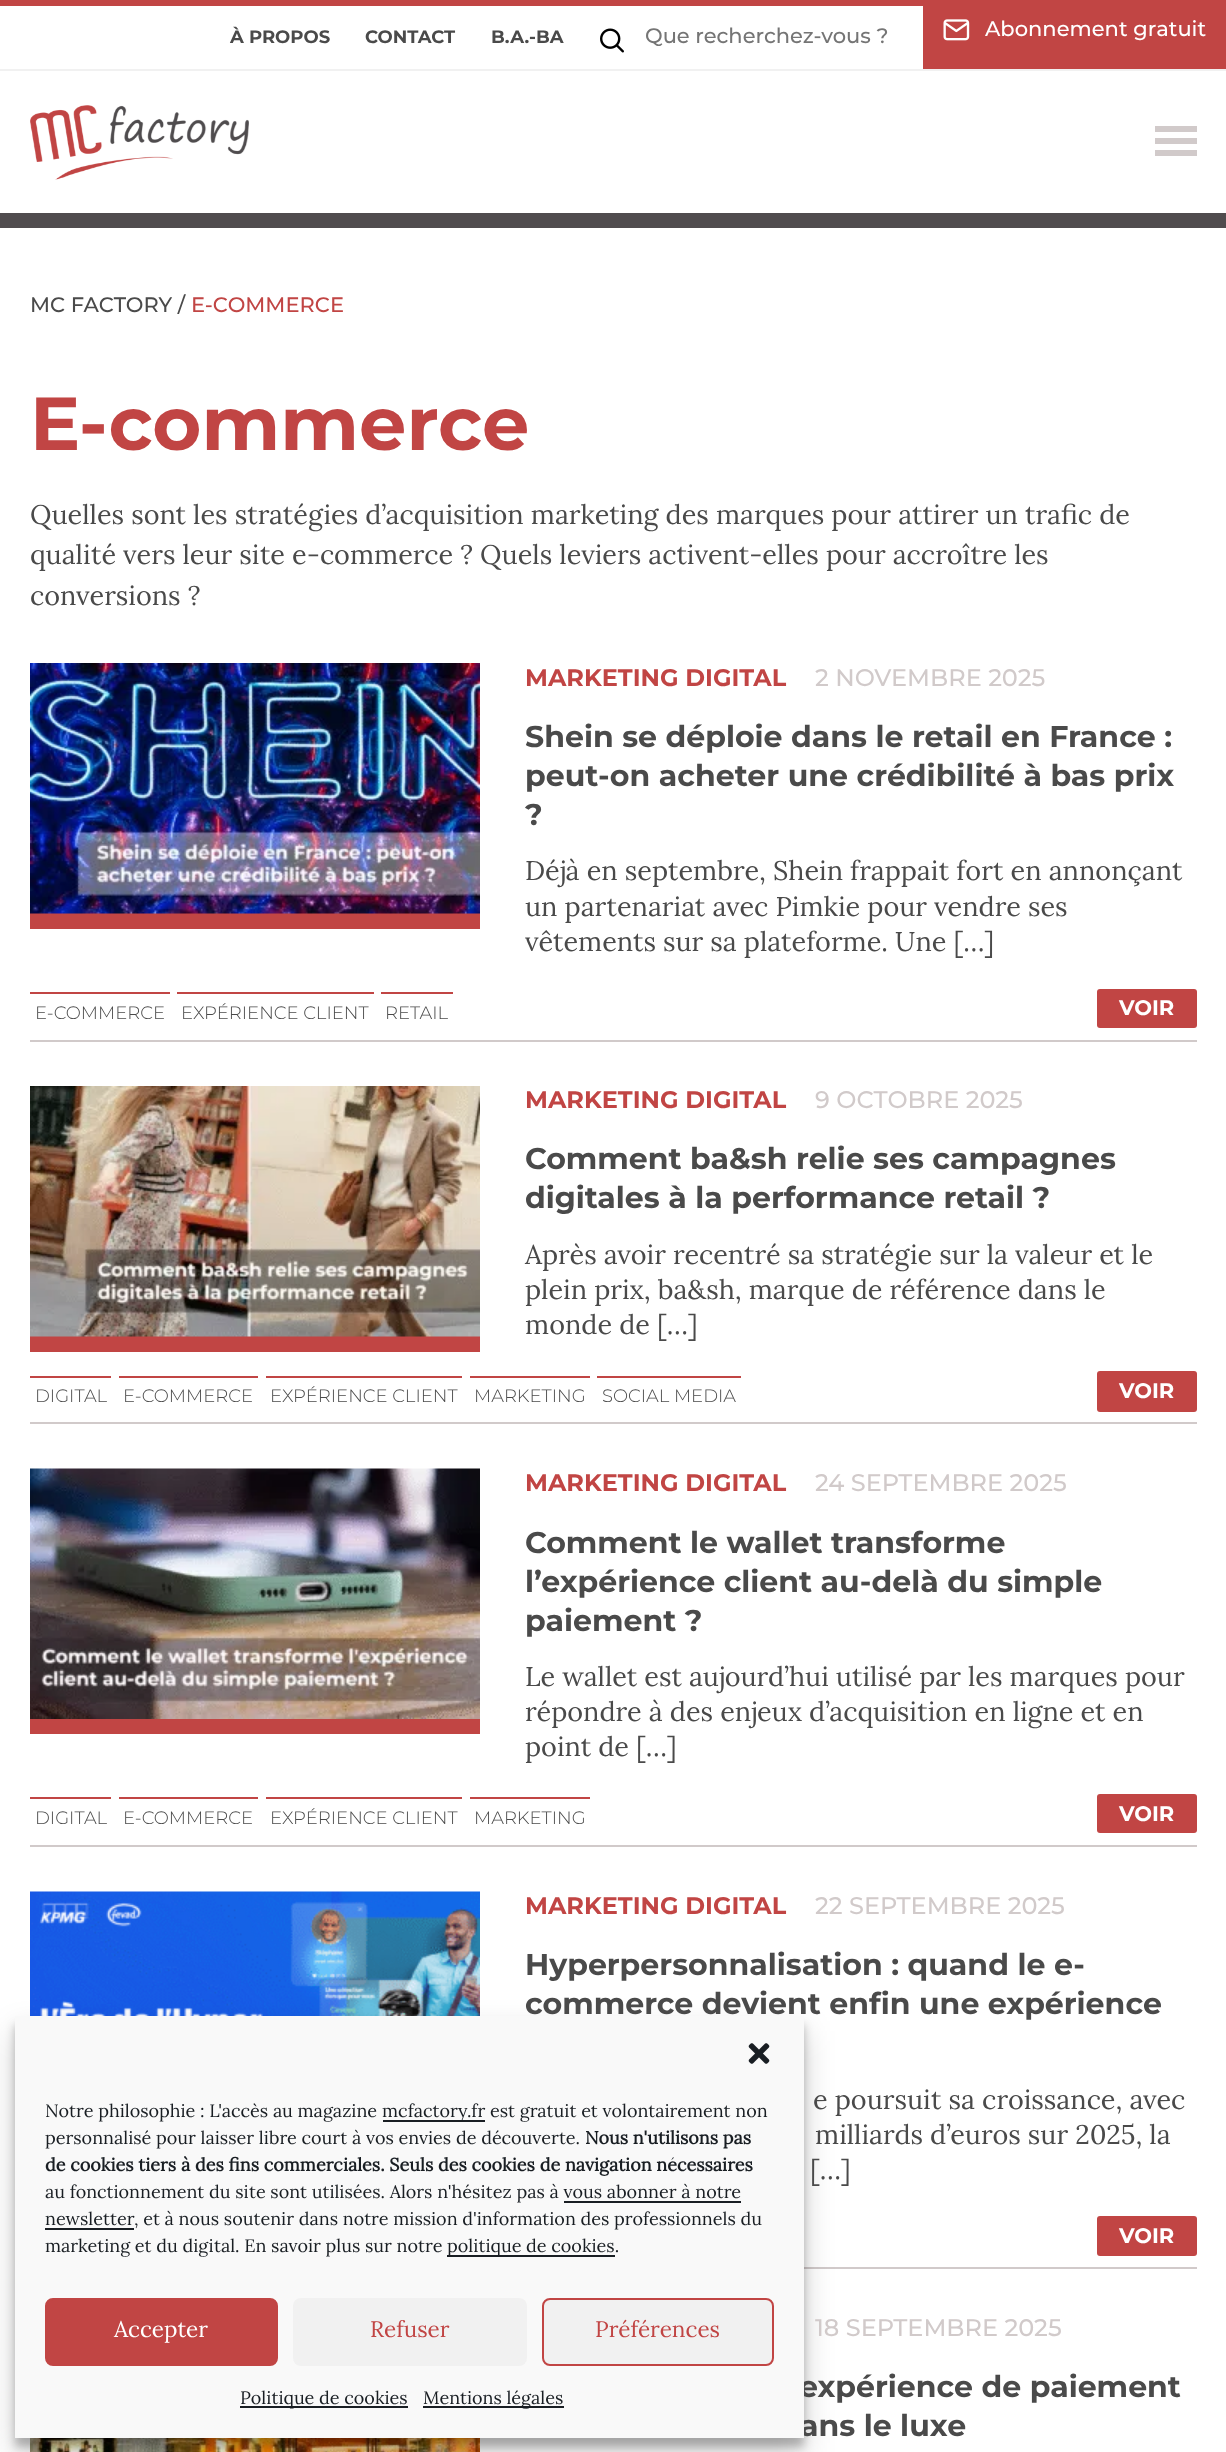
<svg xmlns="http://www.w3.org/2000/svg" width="1226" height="2452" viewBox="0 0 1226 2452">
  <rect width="100%" height="100%" fill="#fff"/>
  <path d="M0 0h1226v6H0z" fill="#c14544"/>
  <path d="M0 69h1226v2H0z" fill="#f1f1f1"/>
  <image x="600" y="28" width="24" height="25" href="img/1.png"/>
  <path d="M923 6h303v63H923z" fill="#c14544"/>
  <image x="943" y="19" width="27" height="22" href="img/2.png"/>
  <path d="M0 213h1226v15H0z" fill="#504c4e"/>
  <image x="30" y="105" width="219" height="75" href="img/3.png"/>
  <path d="M1155 126h42v6H1155z" fill="#d1caca"/>
  <path d="M1155 150h42v6H1155z" fill="#d1caca"/>
  <path d="M1155 138h42v6H1155z" fill="#d1caca"/>
  <path d="M30 1040h1167v2H30z" fill="#d1caca"/>
  <path d="M30 913h450v16H30z" fill="#c14544"/>
  <image x="30" y="663" width="450" height="251" href="img/4.png"/>
  <path d="M30 992h140v2H30z" fill="#c14544"/>
  <path d="M177 992h197v2H177z" fill="#c14544"/>
  <path d="M381 992h72v2H381z" fill="#c14544"/>
  <rect x="1097" y="989" width="100" height="39" rx="3" fill="#c14544"/>
  <path d="M30 1422h1167v2H30z" fill="#d1caca"/>
  <path d="M30 1336h450v16H30z" fill="#c14544"/>
  <image x="30" y="1086" width="450" height="251" href="img/5.png"/>
  <path d="M30 1376h81v2H30z" fill="#c14544"/>
  <path d="M119 1376h139v2H119z" fill="#c14544"/>
  <path d="M266 1376h196v2H266z" fill="#c14544"/>
  <path d="M470 1376h120v2H470z" fill="#c14544"/>
  <path d="M597 1376h144v2H597z" fill="#c14544"/>
  <rect x="1097" y="1371" width="100" height="41" rx="3" fill="#c14544"/>
  <path d="M30 1845h1167v2H30z" fill="#d1caca"/>
  <path d="M30 1719h450v15H30z" fill="#c14544"/>
  <image x="30" y="1468" width="450" height="251" href="img/6.png"/>
  <path d="M30 1797h81v2H30z" fill="#c14544"/>
  <path d="M119 1797h139v2H119z" fill="#c14544"/>
  <path d="M266 1797h196v2H266z" fill="#c14544"/>
  <path d="M470 1797h120v2H470z" fill="#c14544"/>
  <rect x="1097" y="1794" width="100" height="39" rx="3" fill="#c14544"/>
  <path d="M804 2267h393v2H804z" fill="#d1caca"/>
  <image x="30" y="1891" width="450" height="125" href="img/7.png"/>
  <rect x="1097" y="2216" width="100" height="40" rx="3" fill="#c14544"/>
  <image x="30" y="2438" width="450" height="14" href="img/8.png"/>
  <path d="M15 2025h789v422H15z" fill="#0000003b" filter="blur(4.5px)"/>
  <path d="M15 2031h789v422H15z" fill="#00000030" filter="blur(15px)"/>
  <g font-family="Montserrat" font-size="18" font-weight="bold" fill="#4a4a4a">
    <text x="230" y="43">À PROPOS</text>
    <text x="365" y="43">CONTACT</text>
    <text x="491" y="43">B.A.-BA</text>
  </g>
  <text x="645" y="43" font-family="Montserrat" font-size="21" font-weight="500" fill="#757575">Que recherchez-vous ?</text>
  <text x="985" y="36" font-family="Montserrat" font-size="21" font-weight="500" fill="#fff">Abonnement gratuit</text>
  <text x="30" y="312" font-family="Montserrat" font-size="21" font-weight="500" fill="#4a4a4a">MC FACTORY /</text>
  <text x="191" y="312" font-family="Montserrat" font-size="21" font-weight="500" fill="#c14544">E-COMMERCE</text>
  <text x="30" y="450" font-family="Montserrat" font-size="75" font-weight="bold" fill="#c14544">E-commerce</text>
  <g font-family="Lora" font-size="27" fill="#4a4a4a">
    <text x="30" y="524">Quelles sont les stratégies d’acquisition marketing des marques pour attirer un trafic de</text>
    <text x="30" y="564">qualité vers leur site e-commerce ? Quels leviers activent-elles pour accroître les</text>
    <text x="30" y="605">conversions ?</text>
  </g>
  <text x="525" y="686" font-family="Montserrat" font-size="24" font-weight="bold" fill="#c14544">MARKETING DIGITAL</text>
  <text x="815" y="686" font-family="Montserrat" font-size="24" font-weight="500" fill="#d1caca">2 NOVEMBRE 2025</text>
  <g font-family="Montserrat" font-size="30" font-weight="bold" fill="#4a4a4a">
    <text x="525" y="747">Shein se déploie dans le retail en France :</text>
    <text x="525" y="786">peut-on acheter une crédibilité à bas prix</text>
    <text x="525" y="825">?</text>
  </g>
  <g font-family="Lora" font-size="27" fill="#4a4a4a">
    <text x="525" y="880">Déjà en septembre, Shein frappait fort en annonçant</text>
    <text x="525" y="916">un partenariat avec Pimkie pour vendre ses</text>
    <text x="525" y="951">vêtements sur sa plateforme. Une […]</text>
  </g>
  <g font-family="Montserrat" font-size="18" font-weight="300" fill="#4a4a4a">
    <text x="35" y="1019">E-COMMERCE</text>
    <text x="181" y="1019">EXPÉRIENCE CLIENT</text>
    <text x="385" y="1019">RETAIL</text>
  </g>
  <text x="1119" y="1015" font-family="Montserrat" font-size="21" font-weight="bold" fill="#fff">VOIR</text>
  <text x="525" y="1108" font-family="Montserrat" font-size="24" font-weight="bold" fill="#c14544">MARKETING DIGITAL</text>
  <text x="815" y="1108" font-family="Montserrat" font-size="24" font-weight="500" fill="#d1caca">9 OCTOBRE 2025</text>
  <g font-family="Montserrat" font-size="30" font-weight="bold" fill="#4a4a4a">
    <text x="525" y="1169">Comment ba&amp;sh relie ses campagnes</text>
    <text x="525" y="1208">digitales à la performance retail ?</text>
  </g>
  <g font-family="Lora" font-size="27" fill="#4a4a4a">
    <text x="525" y="1264">Après avoir recentré sa stratégie sur la valeur et le</text>
    <text x="525" y="1299">plein prix, ba&amp;sh, marque de référence dans le</text>
    <text x="525" y="1334">monde de […]</text>
  </g>
  <g font-family="Montserrat" font-size="18" font-weight="300" fill="#4a4a4a">
    <text x="35" y="1402">DIGITAL</text>
    <text x="123" y="1402">E-COMMERCE</text>
    <text x="270" y="1402">EXPÉRIENCE CLIENT</text>
    <text x="474" y="1402">MARKETING</text>
    <text x="602" y="1402">SOCIAL MEDIA</text>
  </g>
  <text x="1119" y="1398" font-family="Montserrat" font-size="21" font-weight="bold" fill="#fff">VOIR</text>
  <text x="525" y="1491" font-family="Montserrat" font-size="24" font-weight="bold" fill="#c14544">MARKETING DIGITAL</text>
  <text x="815" y="1491" font-family="Montserrat" font-size="24" font-weight="500" fill="#d1caca">24 SEPTEMBRE 2025</text>
  <g font-family="Montserrat" font-size="30" font-weight="bold" fill="#4a4a4a">
    <text x="525" y="1553">Comment le wallet transforme</text>
    <text x="525" y="1592">l’expérience client au-delà du simple</text>
    <text x="525" y="1631">paiement ?</text>
  </g>
  <g font-family="Lora" font-size="27" fill="#4a4a4a">
    <text x="525" y="1686">Le wallet est aujourd’hui utilisé par les marques pour</text>
    <text x="525" y="1721">répondre à des enjeux d’acquisition en ligne et en</text>
    <text x="525" y="1756">point de […]</text>
  </g>
  <g font-family="Montserrat" font-size="18" font-weight="300" fill="#4a4a4a">
    <text x="35" y="1824">DIGITAL</text>
    <text x="123" y="1824">E-COMMERCE</text>
    <text x="270" y="1824">EXPÉRIENCE CLIENT</text>
    <text x="474" y="1824">MARKETING</text>
  </g>
  <text x="1119" y="1821" font-family="Montserrat" font-size="21" font-weight="bold" fill="#fff">VOIR</text>
  <text x="525" y="1914" font-family="Montserrat" font-size="24" font-weight="bold" fill="#c14544">MARKETING DIGITAL</text>
  <text x="815" y="1914" font-family="Montserrat" font-size="24" font-weight="500" fill="#d1caca">22 SEPTEMBRE 2025</text>
  <g font-family="Montserrat" font-size="30" font-weight="bold" fill="#4a4a4a">
    <text x="525" y="1975">Hyperpersonnalisation : quand le e-</text>
    <text x="525" y="2014">commerce devient enfin une expérience</text>
  </g>
  <g font-family="Lora" font-size="27" fill="#4a4a4a">
    <text x="813" y="2109">e poursuit sa croissance, avec</text>
    <text x="815" y="2144">milliards d’euros sur 2025, la</text>
    <text x="810" y="2179">[…]</text>
  </g>
  <text x="1119" y="2243" font-family="Montserrat" font-size="21" font-weight="bold" fill="#fff">VOIR</text>
  <text x="815" y="2336" font-family="Montserrat" font-size="24" font-weight="500" fill="#d1caca">18 SEPTEMBRE 2025</text>
  <g font-family="Montserrat" font-size="30" font-weight="bold" fill="#4a4a4a">
    <text x="799" y="2397">expérience de paiement</text>
    <text x="800" y="2436">ans le luxe</text>
  </g>
  <path d="M15 2016h789v422H15z" fill="#f9f9f9"/>
  <image x="748" y="2043" width="22" height="21" href="img/9.png"/>
  <text x="45" y="2117" font-family="Lora" font-size="18" fill="#191e23">Notre philosophie : L'accès au magazine</text>
  <path d="M383 2120h102v2H383z" fill="#191e23"/>
  <g font-family="Lora" font-size="18" fill="#191e23">
    <text x="382" y="2117">mcfactory.fr est gratuit et volontairement non</text>
    <text x="45" y="2144">personnalisé pour laisser libre court à vos envies de découverte.</text>
  </g>
  <g font-family="Lora" font-size="18" font-weight="bold" fill="#191e23">
    <text x="585" y="2144">Nous n'utilisons pas</text>
    <text x="45" y="2171">de cookies tiers à des fins commerciales. Seuls des cookies de navigation nécessaires</text>
  </g>
  <g font-family="Lora" font-size="18" fill="#191e23">
    <text x="45" y="2198">au fonctionnement du site sont utilisées. Alors n'hésitez pas à vous abonner à notre</text>
    <text x="45" y="2225">newsletter</text>
  </g>
  <path d="M564 2201h177v2H564z" fill="#191e23"/>
  <path d="M45 2228h89v2H45z" fill="#191e23"/>
  <g font-family="Lora" font-size="18" fill="#191e23">
    <text x="134" y="2225">, et à nous soutenir dans notre mission d'information des professionnels du</text>
    <text x="45" y="2252">marketing et du digital. En savoir plus sur notre</text>
  </g>
  <path d="M447 2255h168v2H447z" fill="#191e23"/>
  <text x="447" y="2252" font-family="Lora" font-size="18" fill="#191e23">politique de cookies.</text>
  <rect x="46" y="2299" width="231" height="66" rx="7" fill="#c14544" stroke="#c14544" stroke-width="2"/>
  <text x="114" y="2337" font-family="Lora" font-size="22.5" fill="#fff">Accepter</text>
  <rect x="293" y="2298" width="234" height="68" rx="8" fill="#f1f1f1"/>
  <text x="370" y="2337" font-family="Lora" font-size="22.5" fill="#c14544">Refuser</text>
  <rect x="543" y="2299" width="230" height="66" rx="7" fill="#f1f1f1" stroke="#c14544" stroke-width="2"/>
  <text x="595" y="2337" font-family="Lora" font-size="22.5" fill="#c14544">Préférences</text>
  <path d="M240 2406h168v2H240z" fill="#191e23"/>
  <text x="240" y="2404" font-family="Lora" font-size="18" fill="#191e23">Politique de cookies</text>
  <path d="M423 2406h141v2H423z" fill="#191e23"/>
  <text x="423" y="2404" font-family="Lora" font-size="18" fill="#191e23">Mentions légales</text>
</svg>
